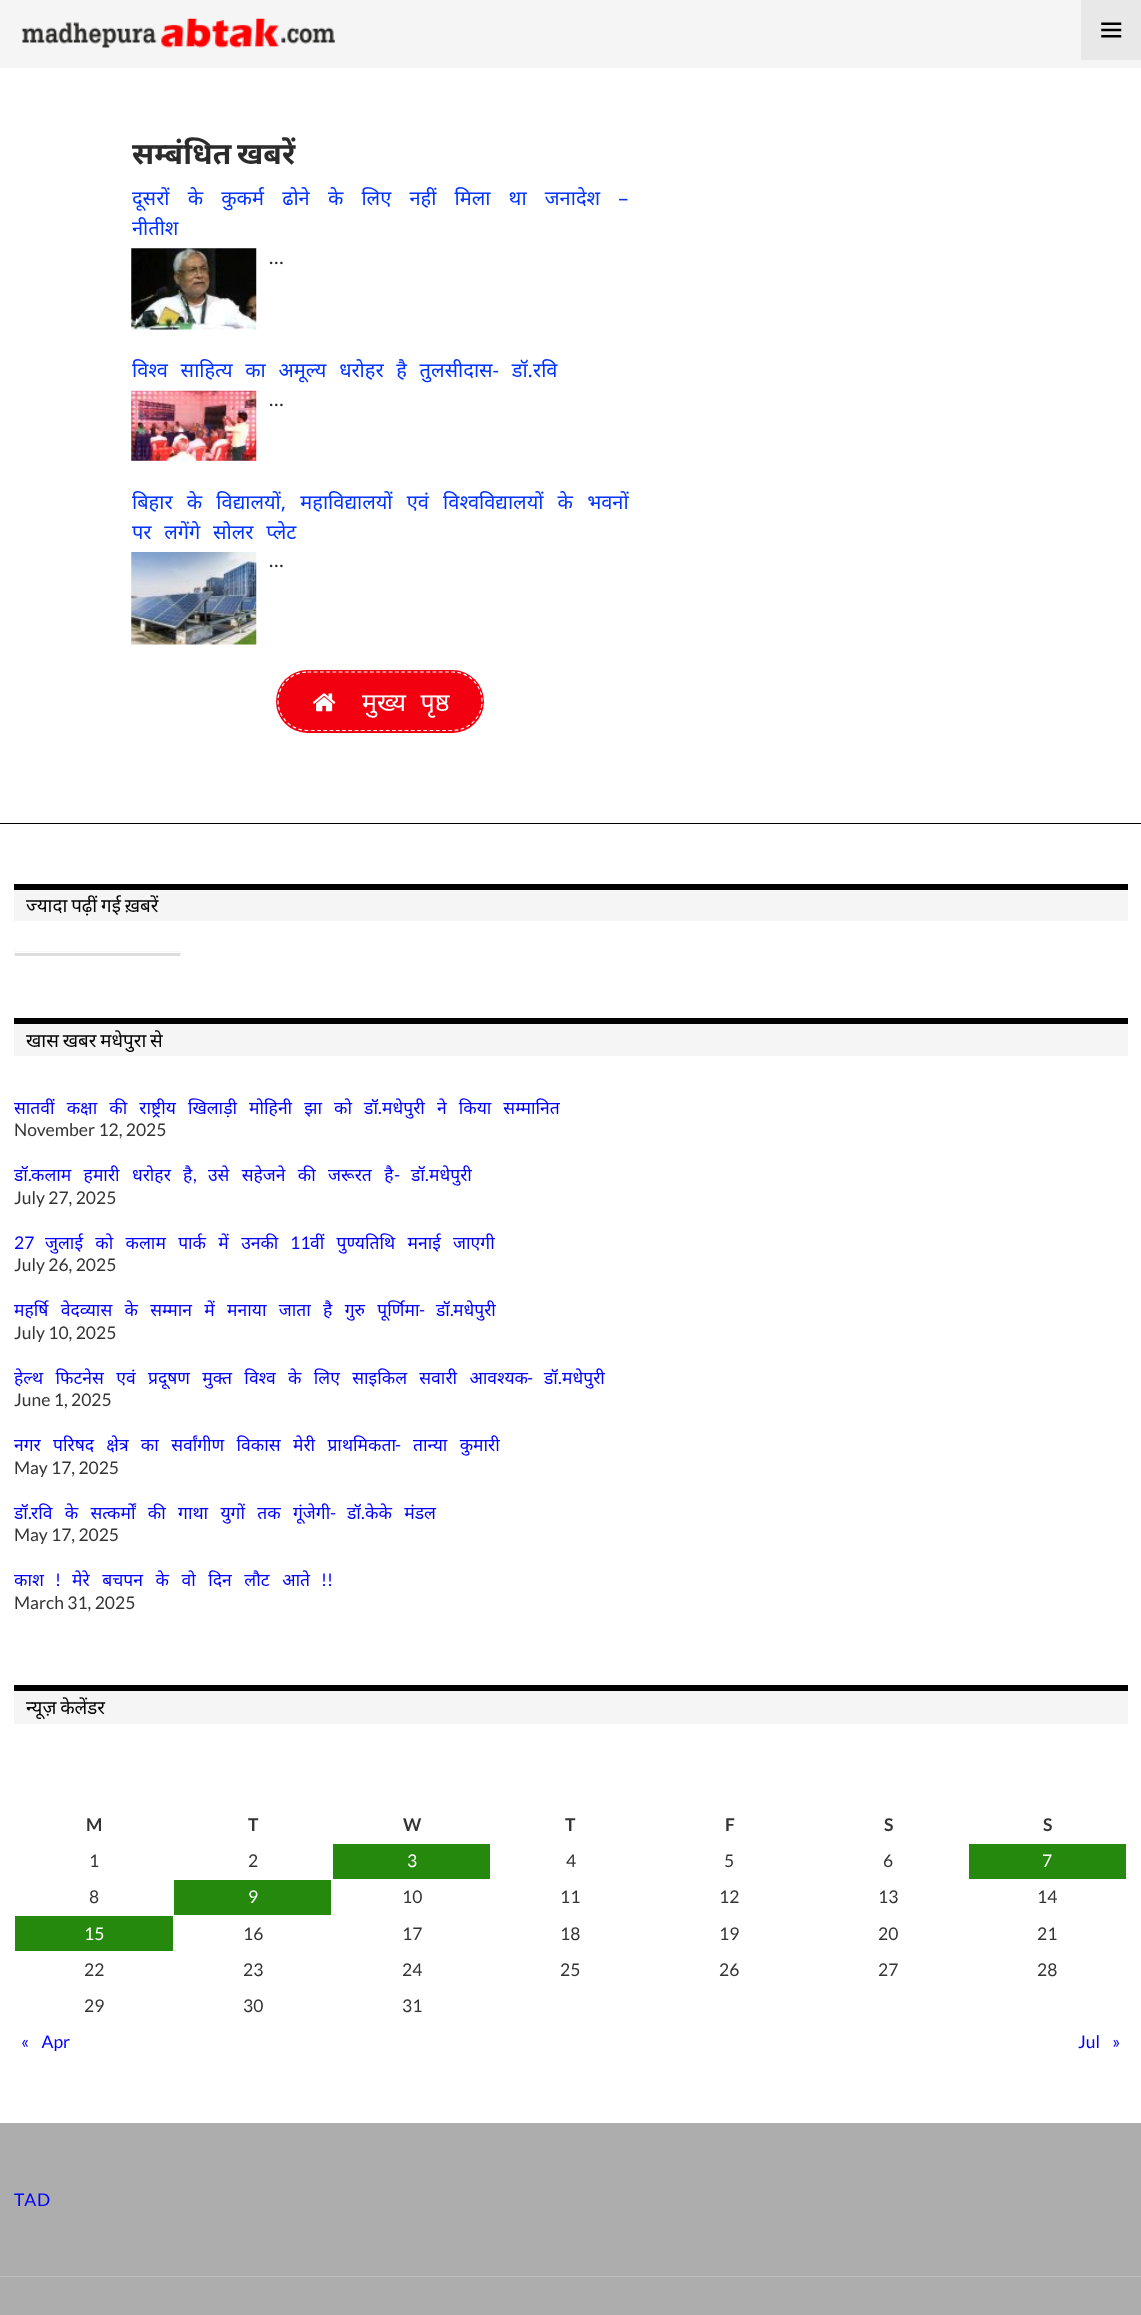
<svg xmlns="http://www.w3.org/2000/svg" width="1141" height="2315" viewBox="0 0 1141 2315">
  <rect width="100%" height="100%" fill="#fff"/>
  <path d="M0 0h1141v68H0z" fill="#f5f5f5"/>
  <image x="22" y="18" width="313" height="30" href="img/1.png"/>
  <path d="M1081 0h60v60H1081z" fill="#e8e8e8"/>
  <image x="1101" y="22" width="21" height="16" href="img/2.png"/>
  <image x="131" y="248" width="126" height="82" href="img/3.png"/>
  <image x="131" y="390" width="126" height="71" href="img/4.png"/>
  <image x="131" y="552" width="126" height="93" href="img/5.png"/>
  <rect x="276" y="670" width="208" height="63" rx="31.5" fill="#f2000f"/>
  <path d="M307.5 672H452.5C468.5 672 482 685 482 701C482 717.5 468.5 730.5 452.5 730.5H307.5C291.5 730.5 278 717.5 278 701C278 685 291.5 672 307.5 672Z" fill="none" stroke="#fff" stroke-width="1.2" stroke-dasharray="3.75 2.5"/>
  <image x="312" y="693" width="24" height="19" href="img/6.png"/>
  <path d="M0 823h1141v1H0z" fill="#000"/>
  <path d="M14 890h1114v31H14z" fill="#f5f5f5"/>
  <path d="M14 884h1114v6H14z" fill="#000"/>
  <path d="M14.5 951.5h166v4H14.5z" fill="none" stroke="#f5f5f5"/>
  <path d="M15 953h165v3H15z" fill="#ddd"/>
  <path d="M14 1024h1114v32H14z" fill="#f5f5f5"/>
  <path d="M14 1018h1114v6H14z" fill="#000"/>
  <path d="M14 1691h1114v33H14z" fill="#f5f5f5"/>
  <path d="M14 1685h1114v6H14z" fill="#000"/>
  <path d="M333 1844h157v35H333z" fill="#24890d"/>
  <path d="M969 1844h157v35H969z" fill="#24890d"/>
  <path d="M174 1880h157v35H174z" fill="#24890d"/>
  <path d="M15 1916h158v35H15z" fill="#24890d"/>
  <path d="M0 2123h1141v192H0z" fill="#adadad"/>
  <path d="M0 2276h1141v1H0z" fill="#bdbdbd"/>
  <text x="132" y="164" word-spacing="-2" font-family="Noto Sans" font-size="30" font-weight="bold" fill="#2b2b2b">सम्बंधित खबरें</text>
  <g font-family="Noto Sans" font-size="20" fill="#03f">
    <text x="132" y="205" word-spacing="13">दूसरों के कुकर्म ढोने के लिए नहीं मिला था जनादेश –</text>
    <text x="132" y="235">नीतीश</text>
  </g>
  <text x="269" y="264" font-family="Lato" font-size="20" fill="#2b2b2b">…</text>
  <text x="132" y="377" word-spacing="7.5" font-family="Noto Sans" font-size="20" fill="#03f">विश्व साहित्य का अमूल्य धरोहर है तुलसीदास- डॉ.रवि</text>
  <text x="269" y="406" font-family="Lato" font-size="20" fill="#2b2b2b">…</text>
  <g font-family="Noto Sans" font-size="20" fill="#03f">
    <text x="132" y="509" word-spacing="9">बिहार के विद्यालयों, महाविद्यालयों एवं विश्वविद्यालयों के भवनों</text>
    <text x="132" y="539" word-spacing="7.5">पर लगेंगे सोलर प्लेट</text>
  </g>
  <text x="269" y="567" font-family="Lato" font-size="20" fill="#2b2b2b">…</text>
  <text x="362" y="711" word-spacing="8" font-family="Noto Sans" font-size="25" fill="#fff">मुख्य पृष्ठ</text>
  <g font-family="Noto Sans" font-size="18.75" fill="#000">
    <text x="26" y="912" word-spacing="-1">ज्यादा पढ़ीं गई ख़बरें</text>
    <text x="26" y="1047" word-spacing="-1">खास खबर मधेपुरा से</text>
  </g>
  <text x="14" y="1114" word-spacing="7.5" font-family="Noto Sans" font-size="17.5" fill="#00f">सातवीं कक्षा की राष्ट्रीय खिलाड़ी मोहिनी झा को डॉ</text>
  <text x="378" y="1114" font-family="Lato" font-size="17.5" fill="#00f">.</text>
  <text x="382" y="1114" word-spacing="7.5" font-family="Noto Sans" font-size="17.5" fill="#00f">मधेपुरी ने किया सम्मानित</text>
  <text x="14" y="1136" font-family="Lato" font-size="17.5" fill="#343434">November 12, 2025</text>
  <g font-family="Noto Sans" font-size="17.5" fill="#00f">
    <text x="14" y="1181">डॉ</text>
    <text x="31" y="1181" word-spacing="7.75">कलाम हमारी धरोहर है</text>
    <text x="208" y="1181" word-spacing="7.75">उसे सहेजने की जरूरत है</text>
  </g>
  <text x="394" y="1181" font-family="Lato" font-size="17.5" fill="#00f">-</text>
  <g font-family="Noto Sans" font-size="17.5" fill="#00f">
    <text x="411" y="1181">डॉ</text>
    <text x="429" y="1181">मधेपुरी</text>
  </g>
  <g font-family="Lato" font-size="17.5" fill="#00f">
    <text x="28" y="1181">.</text>
    <text x="193" y="1181">,</text>
    <text x="425" y="1181">.</text>
  </g>
  <text x="14" y="1204" font-family="Lato" font-size="17.5" fill="#343434">July 27, 2025</text>
  <text x="14" y="1249" font-family="Lato" font-size="17.5" fill="#00f">27</text>
  <text x="45" y="1249" word-spacing="7.75" font-family="Noto Sans" font-size="17.5" fill="#00f">जुलाई को कलाम पार्क में उनकी</text>
  <text x="290" y="1249" font-family="Lato" font-size="17.5" fill="#00f">11</text>
  <text x="310" y="1249" word-spacing="7.75" font-family="Noto Sans" font-size="17.5" fill="#00f">वीं पुण्यतिथि मनाई जाएगी</text>
  <text x="14" y="1271" font-family="Lato" font-size="17.5" fill="#343434">July 26, 2025</text>
  <text x="14" y="1316" word-spacing="7.75" font-family="Noto Sans" font-size="17.5" fill="#00f">महर्षि वेदव्यास के सम्मान में मनाया जाता है गुरु पूर्णिमा</text>
  <text x="419" y="1316" font-family="Lato" font-size="17.5" fill="#00f">-</text>
  <g font-family="Noto Sans" font-size="17.5" fill="#00f">
    <text x="436" y="1316">डॉ</text>
    <text x="453" y="1316">मधेपुरी</text>
  </g>
  <text x="450" y="1316" font-family="Lato" font-size="17.5" fill="#00f">.</text>
  <text x="14" y="1339" font-family="Lato" font-size="17.5" fill="#343434">July 10, 2025</text>
  <text x="14" y="1384" word-spacing="7.75" font-family="Noto Sans" font-size="17.5" fill="#00f">हेल्थ फिटनेस एवं प्रदूषण मुक्त विश्व के लिए साइकिल सवारी आवश्यक</text>
  <text x="527" y="1384" font-family="Lato" font-size="17.5" fill="#00f">-</text>
  <text x="544" y="1384" font-family="Noto Sans" font-size="17.5" fill="#00f">डॉ</text>
  <text x="558" y="1384" font-family="Lato" font-size="17.5" fill="#00f">.</text>
  <text x="562" y="1384" font-family="Noto Sans" font-size="17.5" fill="#00f">मधेपुरी</text>
  <text x="14" y="1406" font-family="Lato" font-size="17.5" fill="#343434">June 1, 2025</text>
  <text x="14" y="1451" word-spacing="7.75" font-family="Noto Sans" font-size="17.5" fill="#00f">नगर परिषद क्षेत्र का सर्वांगीण विकास मेरी प्राथमिकता</text>
  <text x="395" y="1451" font-family="Lato" font-size="17.5" fill="#00f">-</text>
  <text x="413" y="1451" word-spacing="7.75" font-family="Noto Sans" font-size="17.5" fill="#00f">तान्या कुमारी</text>
  <text x="14" y="1474" font-family="Lato" font-size="17.5" fill="#343434">May 17, 2025</text>
  <g font-family="Noto Sans" font-size="17.5" fill="#00f">
    <text x="14" y="1519">डॉ</text>
    <text x="31" y="1519" word-spacing="7.75">रवि के सत्कर्मों की गाथा युगों तक गूंजेगी</text>
  </g>
  <text x="330" y="1519" font-family="Lato" font-size="17.5" fill="#00f">-</text>
  <text x="347" y="1519" font-family="Noto Sans" font-size="17.5" fill="#00f">डॉ</text>
  <g font-family="Lato" font-size="17.5" fill="#00f">
    <text x="28" y="1519">.</text>
    <text x="361" y="1519">.</text>
  </g>
  <text x="365" y="1519" word-spacing="7.75" font-family="Noto Sans" font-size="17.5" fill="#00f">केके मंडल</text>
  <text x="14" y="1541" font-family="Lato" font-size="17.5" fill="#343434">May 17, 2025</text>
  <text x="14" y="1586" font-family="Noto Sans" font-size="17.5" fill="#00f">काश</text>
  <text x="55" y="1586" font-family="Lato" font-size="17.5" fill="#00f">!</text>
  <text x="72" y="1586" word-spacing="8" font-family="Noto Sans" font-size="17.5" fill="#00f">मेरे बचपन के वो दिन लौट आते</text>
  <text x="321" y="1586" font-family="Lato" font-size="17.5" fill="#00f">!!</text>
  <text x="14" y="1609" font-family="Lato" font-size="17.5" fill="#343434">March 31, 2025</text>
  <text x="26" y="1714" word-spacing="-1" font-family="Noto Sans" font-size="18.75" fill="#000">न्यूज़ केलेंडर</text>
  <g font-family="Lato" font-size="17.5" font-weight="bold" fill="#343434">
    <text x="86" y="1831">M</text>
    <text x="248" y="1831">T</text>
    <text x="403" y="1831">W</text>
    <text x="565" y="1831">T</text>
    <text x="725" y="1831">F</text>
    <text x="884" y="1831">S</text>
    <text x="1043" y="1831">S</text>
  </g>
  <g font-family="Lato" font-size="17.5" fill="#343434">
    <text x="89" y="1867">1</text>
    <text x="248" y="1867">2</text>
  </g>
  <text x="407" y="1867" font-family="Lato" font-size="17.5" fill="#fff">3</text>
  <g font-family="Lato" font-size="17.5" fill="#343434">
    <text x="566" y="1867">4</text>
    <text x="724" y="1867">5</text>
    <text x="883" y="1867">6</text>
  </g>
  <text x="1042" y="1867" font-family="Lato" font-size="17.5" fill="#fff">7</text>
  <text x="89" y="1903" font-family="Lato" font-size="17.5" fill="#343434">8</text>
  <text x="248" y="1903" font-family="Lato" font-size="17.5" fill="#fff">9</text>
  <g font-family="Lato" font-size="17.5" fill="#343434">
    <text x="402" y="1903">10</text>
    <text x="560" y="1903">11</text>
    <text x="719" y="1903">12</text>
    <text x="878" y="1903">13</text>
    <text x="1037" y="1903">14</text>
  </g>
  <text x="84" y="1940" font-family="Lato" font-size="17.5" fill="#fff">15</text>
  <g font-family="Lato" font-size="17.5" fill="#343434">
    <text x="243" y="1940">16</text>
    <text x="402" y="1940">17</text>
    <text x="560" y="1940">18</text>
    <text x="719" y="1940">19</text>
    <text x="878" y="1940">20</text>
    <text x="1037" y="1940">21</text>
    <text x="84" y="1976">22</text>
    <text x="243" y="1976">23</text>
    <text x="402" y="1976">24</text>
    <text x="560" y="1976">25</text>
    <text x="719" y="1976">26</text>
    <text x="878" y="1976">27</text>
    <text x="1037" y="1976">28</text>
    <text x="84" y="2012">29</text>
    <text x="243" y="2012">30</text>
    <text x="402" y="2012">31</text>
  </g>
  <g font-family="Lato" font-size="17.5" fill="#00f">
    <text x="21" y="2048" word-spacing="9">« Apr</text>
    <text x="1078" y="2048" word-spacing="9">Jul »</text>
  </g>
  <text x="14" y="2206" font-family="Lato" font-size="17.5" letter-spacing="1" fill="#00f">TAD</text>
</svg>
